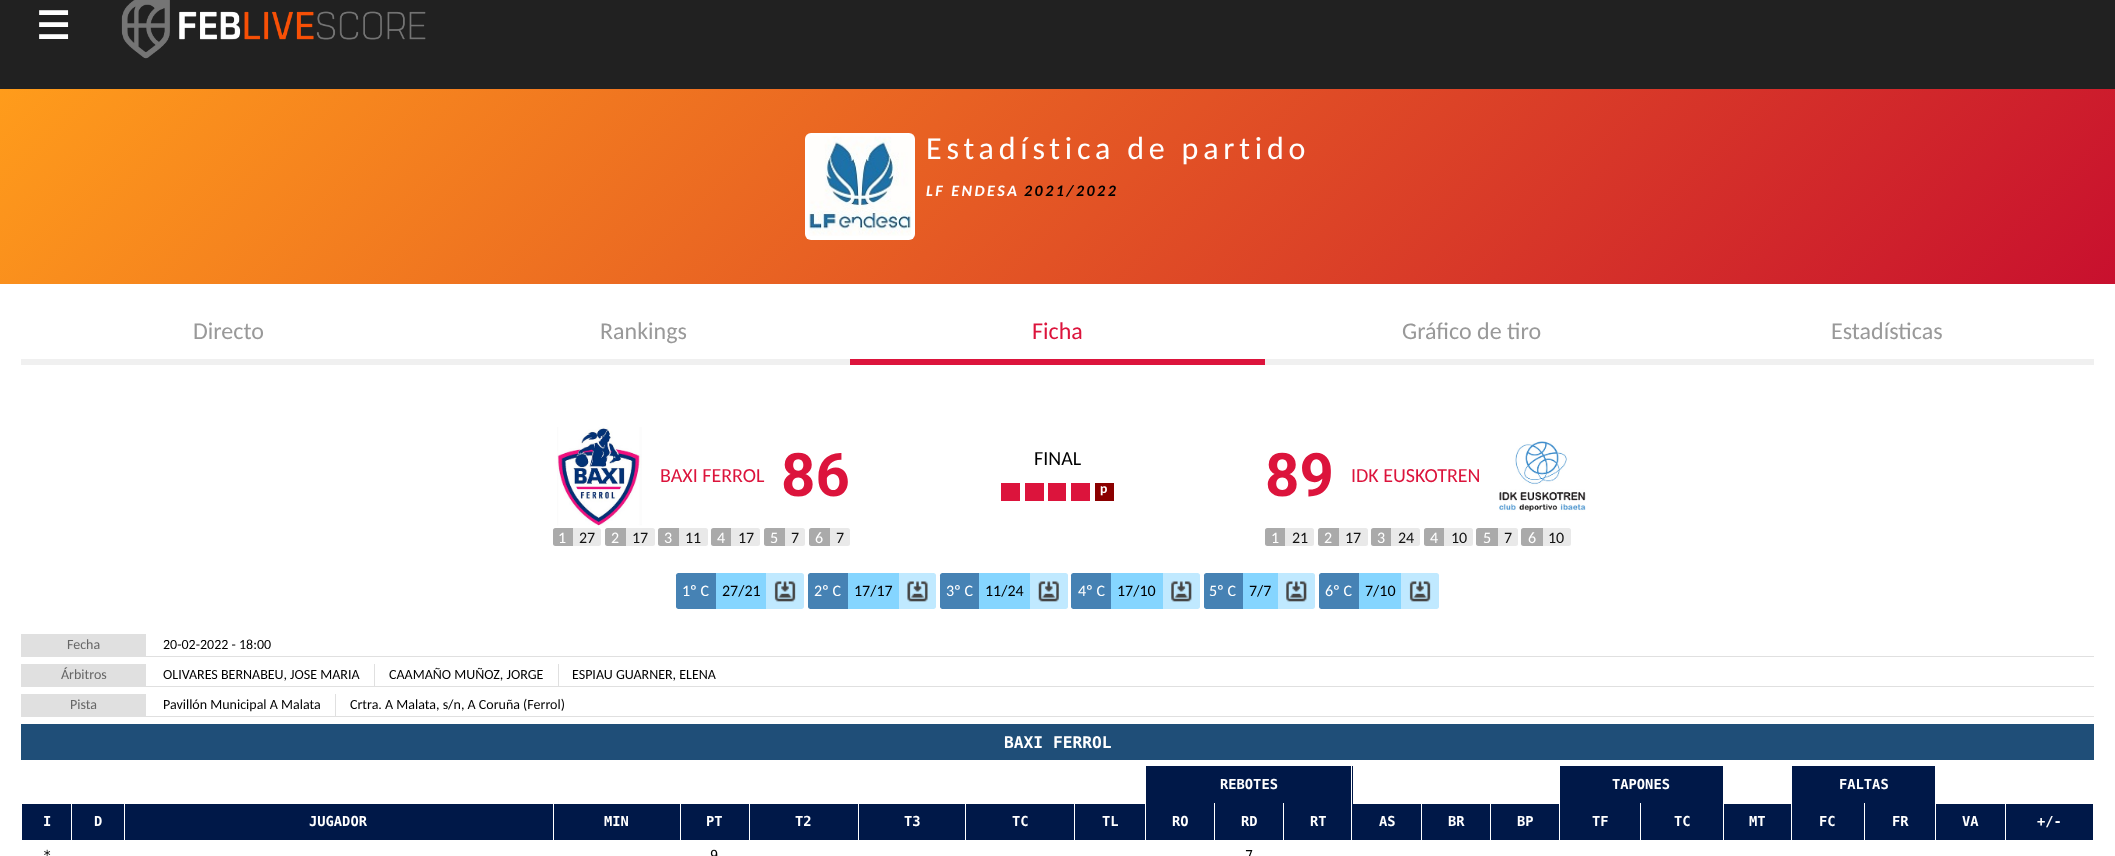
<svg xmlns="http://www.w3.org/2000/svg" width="2115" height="856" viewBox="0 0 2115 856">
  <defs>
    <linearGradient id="g1" gradientUnits="userSpaceOnUse" x1="480" y1="-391" x2="1635" y2="764"><stop offset="0" stop-color="#ff9c1b"/><stop offset="1" stop-color="#c8102e"/></linearGradient>
  </defs>
  <rect width="100%" height="100%" fill="#212121"/>
  <image x="121" y="0" width="305" height="59" href="img/1.png"/>
  <path d="M0 284h2115v572H0z" fill="#fff"/>
  <path d="M0 89h2115v195H0z" fill="url(#g1)"/>
  <rect x="805" y="133" width="110" height="107" rx="6" fill="#fff"/>
  <image x="808" y="136" width="104" height="100" href="img/2.png"/>
  <path d="M21 359h829v6H21z" fill="#f0f0f0"/>
  <path d="M850 359h415v6H850z" fill="#dc143c"/>
  <path d="M1265 359h829v6H1265z" fill="#f0f0f0"/>
  <image x="557" y="427" width="85" height="99" href="img/3.png"/>
  <path d="M1001 483h19v18H1001z" fill="#dc143c"/>
  <path d="M1025 483h19v18H1025z" fill="#dc143c"/>
  <path d="M1048 483h18v18H1048z" fill="#dc143c"/>
  <path d="M1071 483h19v18H1071z" fill="#dc143c"/>
  <path d="M1095 483h19v18H1095z" fill="#8b0000"/>
  <image x="1499" y="441" width="87" height="71" href="img/4.png"/>
  <rect x="553" y="528" width="48" height="18" rx="2.5" fill="#e9e9e9"/>
  <path d="M555.5 528H573V546H555.5C554 546 553 545 553 543.5V530.5C553 529 554 528 555.5 528Z" fill="#aaa"/>
  <rect x="605" y="528" width="50" height="18" rx="2.5" fill="#e9e9e9"/>
  <path d="M607.5 528H626V546H607.5C606 546 605 545 605 543.5V530.5C605 529 606 528 607.5 528Z" fill="#aaa"/>
  <rect x="658" y="528" width="50" height="18" rx="2.5" fill="#e9e9e9"/>
  <path d="M660.5 528H679V546H660.5C659 546 658 545 658 543.5V530.5C658 529 659 528 660.5 528Z" fill="#aaa"/>
  <rect x="711" y="528" width="49" height="18" rx="2.5" fill="#e9e9e9"/>
  <path d="M713.5 528H731V546H713.5C712 546 711 545 711 543.5V530.5C711 529 712 528 713.5 528Z" fill="#aaa"/>
  <rect x="764" y="528" width="41" height="18" rx="2.5" fill="#e9e9e9"/>
  <path d="M766.5 528H785V546H766.5C765 546 764 545 764 543.5V530.5C764 529 765 528 766.5 528Z" fill="#aaa"/>
  <rect x="809" y="528" width="41" height="18" rx="2.5" fill="#e9e9e9"/>
  <path d="M811.5 528H830V546H811.5C810 546 809 545 809 543.5V530.5C809 529 810 528 811.5 528Z" fill="#aaa"/>
  <rect x="1265" y="528" width="49" height="18" rx="2.5" fill="#e9e9e9"/>
  <path d="M1267.5 528H1285V546H1267.5C1266 546 1265 545 1265 543.5V530.5C1265 529 1266 528 1267.5 528Z" fill="#aaa"/>
  <rect x="1318" y="528" width="50" height="18" rx="2.5" fill="#e9e9e9"/>
  <path d="M1320.5 528H1339V546H1320.5C1319 546 1318 545 1318 543.5V530.5C1318 529 1319 528 1320.5 528Z" fill="#aaa"/>
  <rect x="1371" y="528" width="49" height="18" rx="2.5" fill="#e9e9e9"/>
  <path d="M1373.5 528H1391V546H1373.5C1372 546 1371 545 1371 543.5V530.5C1371 529 1372 528 1373.5 528Z" fill="#aaa"/>
  <rect x="1424" y="528" width="49" height="18" rx="2.5" fill="#e9e9e9"/>
  <path d="M1426.5 528H1444V546H1426.5C1425 546 1424 545 1424 543.5V530.5C1424 529 1425 528 1426.5 528Z" fill="#aaa"/>
  <rect x="1476" y="528" width="42" height="18" rx="2.5" fill="#e9e9e9"/>
  <path d="M1478.5 528H1498V546H1478.5C1477 546 1476 545 1476 543.5V530.5C1476 529 1477 528 1478.5 528Z" fill="#aaa"/>
  <rect x="1521" y="528" width="50" height="18" rx="2.5" fill="#e9e9e9"/>
  <path d="M1523.5 528H1543V546H1523.5C1522 546 1521 545 1521 543.5V530.5C1521 529 1522 528 1523.5 528Z" fill="#aaa"/>
  <path d="M678.5 573H716V609H678.5C677 609 676 608 676 606.5V575.5C676 574 677 573 678.5 573Z" fill="#4682b4"/>
  <path d="M716 573h50v36H716z" fill="#85d5ff"/>
  <path d="M766 573H801.5C803 573 804 574 804 575.5V606.5C804 608 803 609 801.5 609H766Z" fill="#c0e9ff"/>
  <image x="774" y="581" width="22" height="21" href="img/5.png"/>
  <path d="M810.5 573H848V609H810.5C809 609 808 608 808 606.5V575.5C808 574 809 573 810.5 573Z" fill="#4682b4"/>
  <path d="M848 573h51v36H848z" fill="#85d5ff"/>
  <path d="M899 573H933.5C935 573 936 574 936 575.5V606.5C936 608 935 609 933.5 609H899Z" fill="#c0e9ff"/>
  <image x="907" y="581" width="21" height="21" href="img/6.png"/>
  <path d="M942.5 573H979V609H942.5C941 609 940 608 940 606.5V575.5C940 574 941 573 942.5 573Z" fill="#4682b4"/>
  <path d="M979 573h51v36H979z" fill="#85d5ff"/>
  <path d="M1030 573H1065.5C1067 573 1068 574 1068 575.5V606.5C1068 608 1067 609 1065.5 609H1030Z" fill="#c0e9ff"/>
  <image x="1038" y="581" width="21" height="21" href="img/7.png"/>
  <path d="M1073.5 573H1111V609H1073.5C1072 609 1071 608 1071 606.5V575.5C1071 574 1072 573 1073.5 573Z" fill="#4682b4"/>
  <path d="M1111 573h52v36H1111z" fill="#85d5ff"/>
  <path d="M1163 573H1197.5C1199 573 1200 574 1200 575.5V606.5C1200 608 1199 609 1197.5 609H1163Z" fill="#c0e9ff"/>
  <image x="1171" y="581" width="21" height="21" href="img/8.png"/>
  <path d="M1206.5 573H1243V609H1206.5C1205 609 1204 608 1204 606.5V575.5C1204 574 1205 573 1206.5 573Z" fill="#4682b4"/>
  <path d="M1243 573h35v36H1243z" fill="#85d5ff"/>
  <path d="M1278 573H1312.5C1314 573 1315 574 1315 575.5V606.5C1315 608 1314 609 1312.5 609H1278Z" fill="#c0e9ff"/>
  <image x="1286" y="581" width="21" height="21" href="img/9.png"/>
  <path d="M1321.5 573H1359V609H1321.5C1320 609 1319 608 1319 606.5V575.5C1319 574 1320 573 1321.5 573Z" fill="#4682b4"/>
  <path d="M1359 573h42v36H1359z" fill="#85d5ff"/>
  <path d="M1401 573H1436.5C1438 573 1439 574 1439 575.5V606.5C1439 608 1438 609 1436.5 609H1401Z" fill="#c0e9ff"/>
  <image x="1409" y="581" width="22" height="21" href="img/10.png"/>
  <path d="M21 656h2073v1H21z" fill="#e0e0e0"/>
  <path d="M21 634h125v22H21z" fill="#e0e0e0"/>
  <path d="M21 686h2073v1H21z" fill="#e0e0e0"/>
  <path d="M21 664h125v22H21z" fill="#e0e0e0"/>
  <path d="M374 664h1v22H374z" fill="#e0e0e0"/>
  <path d="M558 664h1v22H558z" fill="#e0e0e0"/>
  <path d="M21 716h2073v1H21z" fill="#e0e0e0"/>
  <path d="M21 694h125v22H21z" fill="#e0e0e0"/>
  <path d="M335 694h1v22H335z" fill="#e0e0e0"/>
  <path d="M21 724h2073v36H21z" fill="#1f4e78"/>
  <path d="M1146 766h207v38H1146z" fill="#001848"/>
  <path d="M1560 766h163v38H1560z" fill="#001848"/>
  <path d="M1792 766h143v38H1792z" fill="#001848"/>
  <path d="M22 804h102v36H22z" fill="#001848"/>
  <path d="M71 803h1v38H71z" fill="#fff"/>
  <path d="M125 804h428v36H125z" fill="#001848"/>
  <path d="M554 804h126v36H554z" fill="#001848"/>
  <path d="M681 804h68v36H681z" fill="#001848"/>
  <path d="M750 804h108v36H750z" fill="#001848"/>
  <path d="M859 804h106v36H859z" fill="#001848"/>
  <path d="M966 804h108v36H966z" fill="#001848"/>
  <path d="M1075 804h70v36H1075z" fill="#001848"/>
  <path d="M1146 804h68v36H1146z" fill="#001848"/>
  <path d="M1215 804h68v36H1215z" fill="#001848"/>
  <path d="M1214 803h1v1H1214z" fill="#fff"/>
  <path d="M1284 804h137v36H1284z" fill="#001848"/>
  <path d="M1283 803h1v1H1283z" fill="#fff"/>
  <path d="M1351 766h1v75H1351z" fill="#fff"/>
  <path d="M1422 804h68v36H1422z" fill="#001848"/>
  <path d="M1491 804h68v36H1491z" fill="#001848"/>
  <path d="M1560 804h80v36H1560z" fill="#001848"/>
  <path d="M1641 804h82v36H1641z" fill="#001848"/>
  <path d="M1640 803h1v1H1640z" fill="#fff"/>
  <path d="M1724 804h67v36H1724z" fill="#001848"/>
  <path d="M1792 804h72v36H1792z" fill="#001848"/>
  <path d="M1865 804h70v36H1865z" fill="#001848"/>
  <path d="M1864 803h1v1H1864z" fill="#fff"/>
  <path d="M1936 804h69v36H1936z" fill="#001848"/>
  <path d="M2006 804h87v36H2006z" fill="#001848"/>
  <text x="36" y="39" font-family="DejaVu Sans" font-size="38" font-weight="bold" fill="#fff">☰</text>
  <text x="926" y="159" font-family="Carlito" font-size="32" letter-spacing="4.8" fill="#fff">Estadística de partido</text>
  <text x="926" y="196" font-family="Carlito" font-size="16" font-weight="bold" font-style="italic" letter-spacing="2.5" fill="#fff">LF ENDESA</text>
  <text x="1024" y="196" font-family="Carlito" font-size="16" font-weight="bold" font-style="italic" letter-spacing="2.5" fill="#000">2021/2022</text>
  <g font-family="Carlito" font-size="24" fill="#999">
    <text x="193" y="339">Directo</text>
    <text x="600" y="339">Rankings</text>
  </g>
  <text x="1032" y="339" font-family="Carlito" font-size="24" fill="#dc143c">Ficha</text>
  <g font-family="Carlito" font-size="24" fill="#999">
    <text x="1402" y="339">Gráfico de tiro</text>
    <text x="1831" y="339">Estadísticas</text>
  </g>
  <text x="660" y="482" font-family="Carlito" font-size="20" fill="#dc143c">BAXI FERROL</text>
  <text x="781" y="496" font-family="Roboto" font-size="60" font-weight="bold" fill="#dc143c">86</text>
  <text x="1034" y="465" font-family="Carlito" font-size="20" fill="#000">FINAL</text>
  <text x="1100" y="493" font-family="Carlito" font-size="13.75" font-weight="bold" fill="#fff">p</text>
  <text x="1265" y="496" font-family="Roboto" font-size="60" font-weight="bold" fill="#dc143c">89</text>
  <text x="1351" y="482" font-family="Carlito" font-size="20" fill="#dc143c">IDK EUSKOTREN</text>
  <text x="558" y="543" font-family="Carlito" font-size="16" fill="#fff">1</text>
  <text x="579" y="543" font-family="Carlito" font-size="16" fill="#111">27</text>
  <text x="611" y="543" font-family="Carlito" font-size="16" fill="#fff">2</text>
  <text x="632" y="543" font-family="Carlito" font-size="16" fill="#111">17</text>
  <text x="664" y="543" font-family="Carlito" font-size="16" fill="#fff">3</text>
  <text x="685" y="543" font-family="Carlito" font-size="16" fill="#111">11</text>
  <text x="717" y="543" font-family="Carlito" font-size="16" fill="#fff">4</text>
  <text x="738" y="543" font-family="Carlito" font-size="16" fill="#111">17</text>
  <text x="770" y="543" font-family="Carlito" font-size="16" fill="#fff">5</text>
  <text x="791" y="543" font-family="Carlito" font-size="16" fill="#111">7</text>
  <text x="815" y="543" font-family="Carlito" font-size="16" fill="#fff">6</text>
  <text x="836" y="543" font-family="Carlito" font-size="16" fill="#111">7</text>
  <text x="1271" y="543" font-family="Carlito" font-size="16" fill="#fff">1</text>
  <text x="1292" y="543" font-family="Carlito" font-size="16" fill="#111">21</text>
  <text x="1324" y="543" font-family="Carlito" font-size="16" fill="#fff">2</text>
  <text x="1345" y="543" font-family="Carlito" font-size="16" fill="#111">17</text>
  <text x="1377" y="543" font-family="Carlito" font-size="16" fill="#fff">3</text>
  <text x="1398" y="543" font-family="Carlito" font-size="16" fill="#111">24</text>
  <text x="1430" y="543" font-family="Carlito" font-size="16" fill="#fff">4</text>
  <text x="1451" y="543" font-family="Carlito" font-size="16" fill="#111">10</text>
  <text x="1483" y="543" font-family="Carlito" font-size="16" fill="#fff">5</text>
  <text x="1504" y="543" font-family="Carlito" font-size="16" fill="#111">7</text>
  <text x="1528" y="543" font-family="Carlito" font-size="16" fill="#fff">6</text>
  <text x="1548" y="543" font-family="Carlito" font-size="16" fill="#111">10</text>
  <text x="682" y="596" font-family="Carlito" font-size="16" fill="#fff">1º C</text>
  <text x="722" y="596" font-family="Carlito" font-size="16" fill="#000">27/21</text>
  <text x="814" y="596" font-family="Carlito" font-size="16" fill="#fff">2º C</text>
  <text x="854" y="596" font-family="Carlito" font-size="16" fill="#000">17/17</text>
  <text x="946" y="596" font-family="Carlito" font-size="16" fill="#fff">3º C</text>
  <text x="985" y="596" font-family="Carlito" font-size="16" fill="#000">11/24</text>
  <text x="1078" y="596" font-family="Carlito" font-size="16" fill="#fff">4º C</text>
  <text x="1117" y="596" font-family="Carlito" font-size="16" fill="#000">17/10</text>
  <text x="1209" y="596" font-family="Carlito" font-size="16" fill="#fff">5º C</text>
  <text x="1249" y="596" font-family="Carlito" font-size="16" fill="#000">7/7</text>
  <text x="1325" y="596" font-family="Carlito" font-size="16" fill="#fff">6º C</text>
  <text x="1365" y="596" font-family="Carlito" font-size="16" fill="#000">7/10</text>
  <text x="67" y="649" font-family="Carlito" font-size="14" fill="#666">Fecha</text>
  <text x="163" y="649" font-family="Carlito" font-size="14" fill="#000">20-02-2022 - 18:00</text>
  <text x="61" y="679" font-family="Carlito" font-size="14" fill="#666">Árbitros</text>
  <g font-family="Carlito" font-size="14" fill="#000">
    <text x="163" y="679">OLIVARES BERNABEU, JOSE MARIA</text>
    <text x="389" y="679">CAAMAÑO MUÑOZ, JORGE</text>
    <text x="572" y="679">ESPIAU GUARNER, ELENA</text>
  </g>
  <text x="70" y="709" font-family="Carlito" font-size="14" fill="#666">Pista</text>
  <g font-family="Carlito" font-size="14" fill="#000">
    <text x="163" y="709">Pavillón Municipal A Malata</text>
    <text x="350" y="709">Crtra. A Malata, s/n, A Coruña (Ferrol)</text>
  </g>
  <text x="1004" y="748" font-family="DejaVu Sans Mono" font-size="16.25" font-weight="bold" fill="#fff">BAXI FERROL</text>
  <g font-family="DejaVu Sans Mono" font-size="13.75" font-weight="bold" fill="#fff">
    <text x="1220" y="789">REBOTES</text>
    <text x="1612" y="789">TAPONES</text>
    <text x="1839" y="789">FALTAS</text>
    <text x="43" y="826">I</text>
    <text x="94" y="826">D</text>
    <text x="309" y="826">JUGADOR</text>
    <text x="604" y="826">MIN</text>
    <text x="706" y="826">PT</text>
    <text x="795" y="826">T2</text>
    <text x="904" y="826">T3</text>
    <text x="1012" y="826">TC</text>
    <text x="1102" y="826">TL</text>
    <text x="1172" y="826">RO</text>
    <text x="1241" y="826">RD</text>
    <text x="1310" y="826">RT</text>
    <text x="1379" y="826">AS</text>
    <text x="1448" y="826">BR</text>
    <text x="1517" y="826">BP</text>
    <text x="1592" y="826">TF</text>
    <text x="1674" y="826">TC</text>
    <text x="1749" y="826">MT</text>
    <text x="1819" y="826">FC</text>
    <text x="1892" y="826">FR</text>
    <text x="1962" y="826">VA</text>
    <text x="2037" y="826">+/-</text>
  </g>
  <g font-family="DejaVu Sans Mono" font-size="13.75" fill="#000">
    <text x="43" y="860">*</text>
    <text x="710" y="860">9</text>
    <text x="1245" y="860">7</text>
  </g>
</svg>
